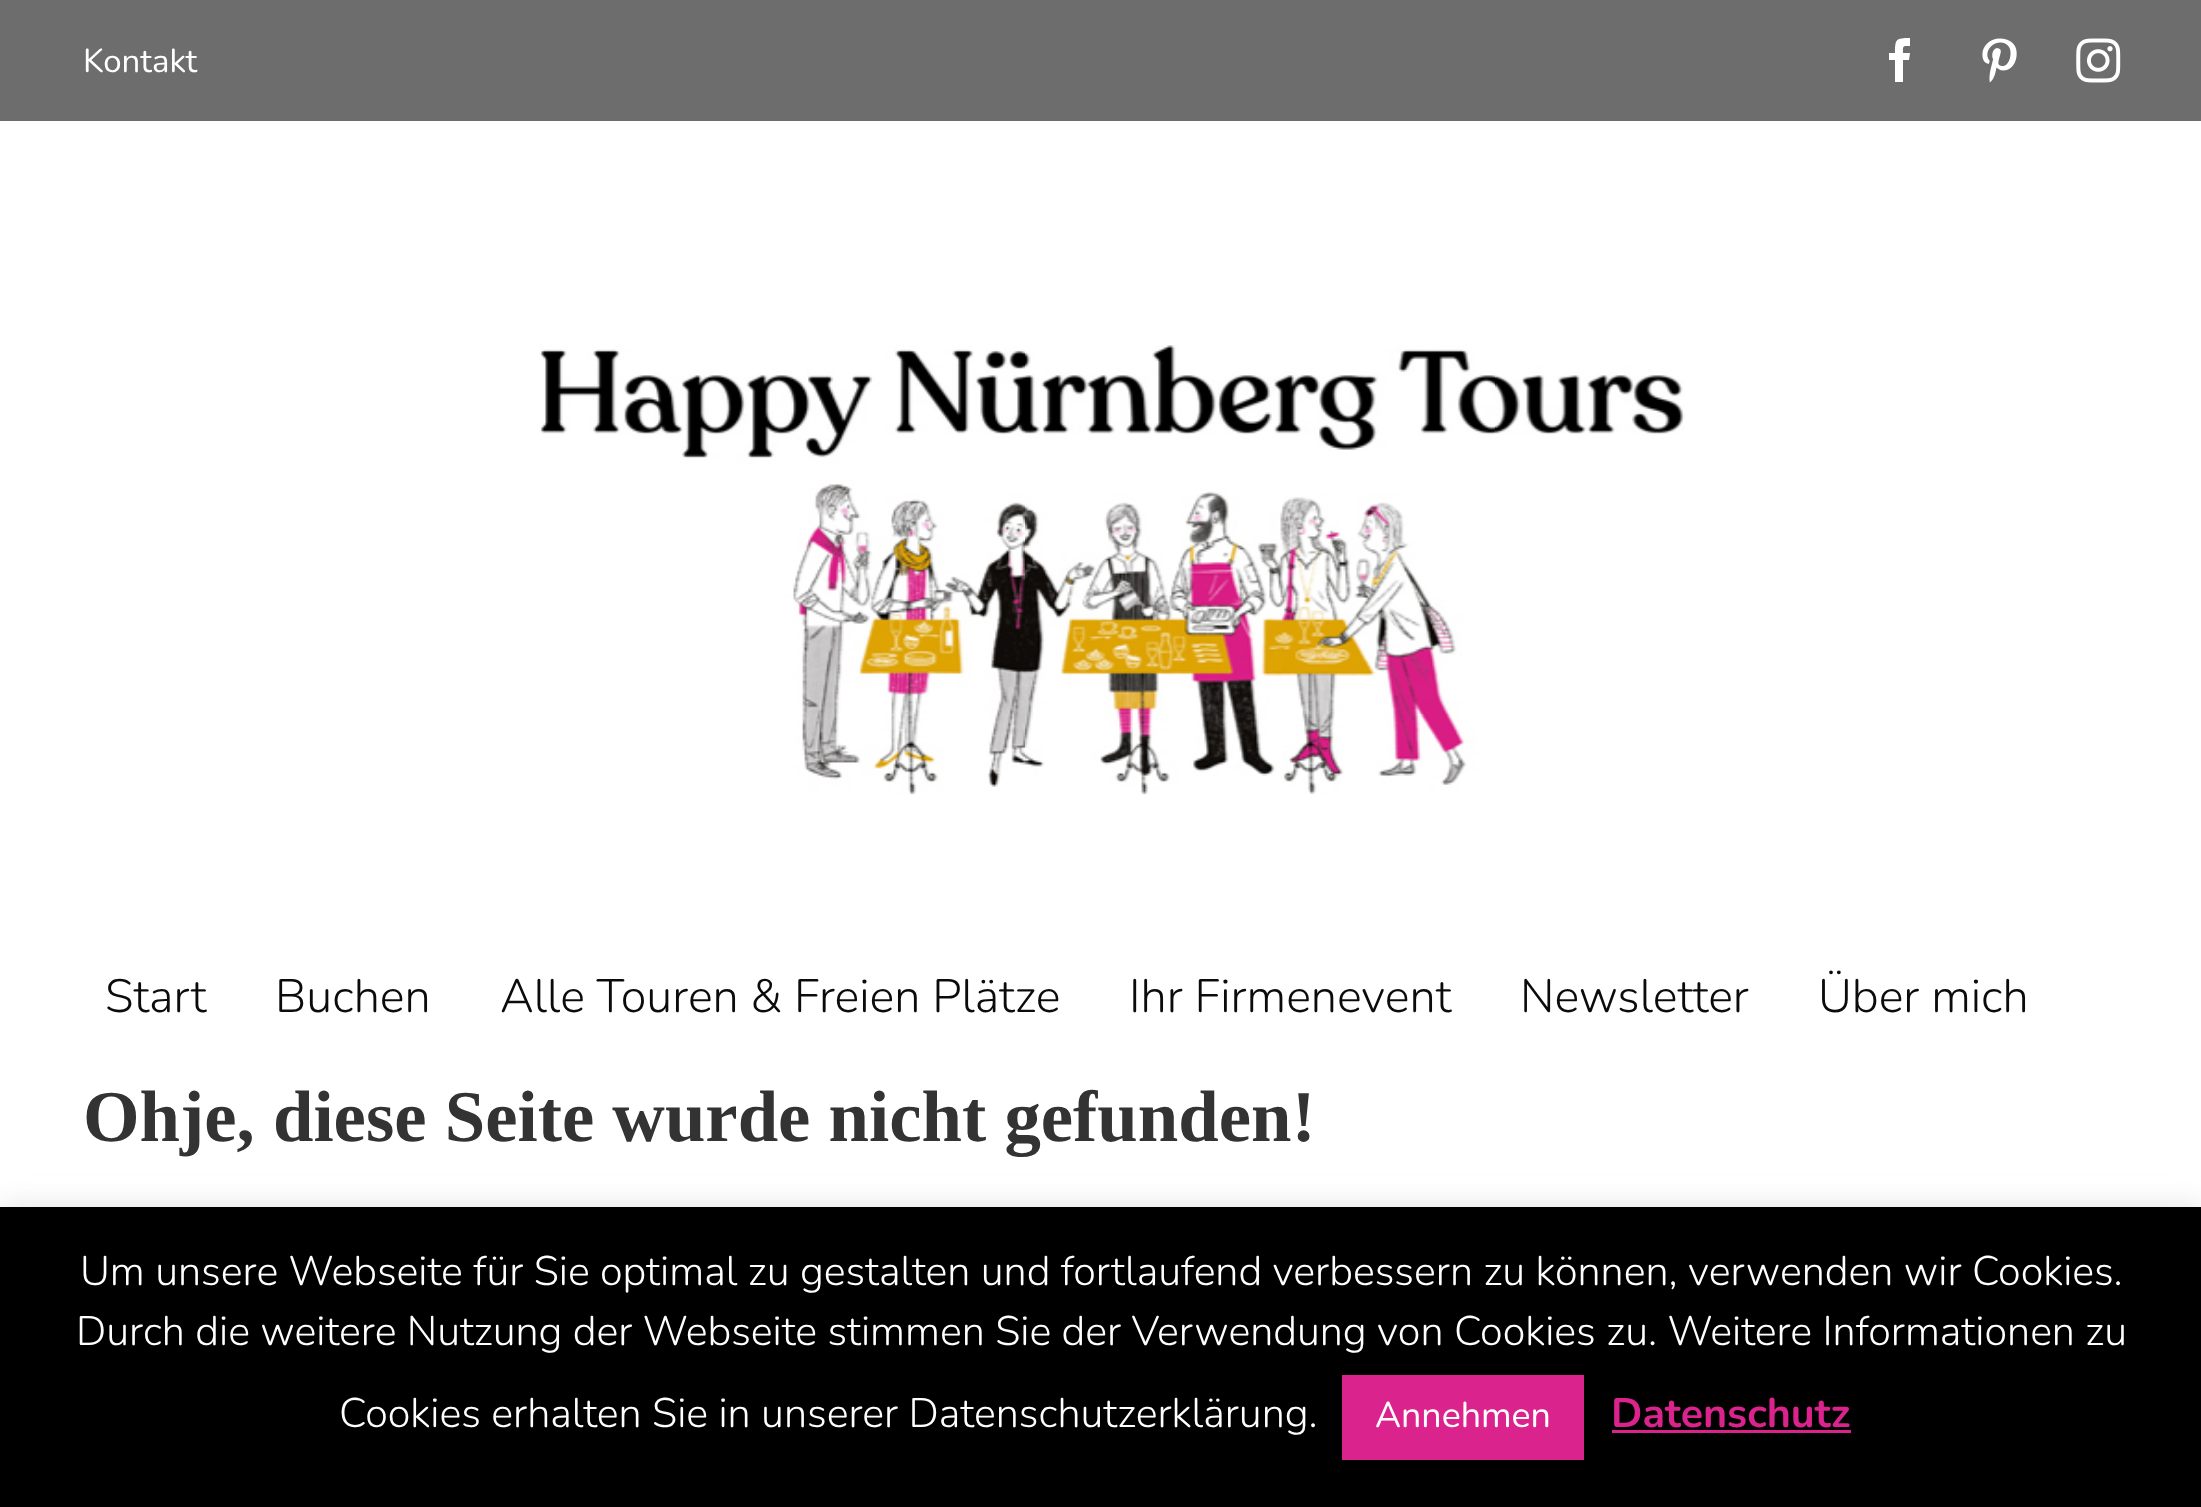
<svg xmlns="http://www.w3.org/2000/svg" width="2201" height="1507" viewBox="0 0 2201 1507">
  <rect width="100%" height="100%" fill="#fff"/>
  <path d="M0 0h2201v121H0z" fill="#6d6d6d"/>
  <path d="M1903 82H1895V60H1889V53H1895C1895 39 1896 38 1910 38V46C1902 46 1903 46 1903 53H1910L1909 60H1903Z" fill="#fff"/>
  <image x="1982" y="38" width="35" height="45" href="img/1.png"/>
  <image x="2076" y="38" width="45" height="45" href="img/2.png"/>
  <image x="539" y="345" width="1146" height="450" href="img/3.png"/>
  <path d="M0 1205h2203v299H0z" fill="#acabab4d" filter="blur(14px)"/>
  <path d="M0 1207h2201v300H0z" fill="#000"/>
  <path d="M1342 1375h242v85H1342z" fill="#db238e"/>
  <path d="M1612 1430h239v3H1612z" fill="#db238e"/>
  <text x="83" y="72" font-family="Nunito" font-size="33" fill="#fff">Kontakt</text>
  <g font-family="Nunito" font-size="46.75" font-weight="300" fill="#0b0b0b">
    <text x="105" y="1012">Start</text>
    <text x="275" y="1012">Buchen</text>
    <text x="500" y="1012">Alle Touren &amp; Freien Plätze</text>
    <text x="1129" y="1012">Ihr Firmenevent</text>
    <text x="1520" y="1012">Newsletter</text>
    <text x="1818" y="1012">Über mich</text>
  </g>
  <text x="83" y="1141" font-family="Liberation Serif" font-size="72.75" font-weight="bold" fill="#333">Ohje, diese Seite wurde nicht gefunden!</text>
  <g font-family="Nunito" font-size="41.25" font-weight="300" fill="#fff">
    <text x="80" y="1285">Um unsere Webseite für Sie optimal zu gestalten und fortlaufend verbessern zu können, verwenden wir Cookies.</text>
    <text x="76" y="1345">Durch die weitere Nutzung der Webseite stimmen Sie der Verwendung von Cookies zu. Weitere Informationen zu</text>
    <text x="339" y="1427">Cookies erhalten Sie in unserer Datenschutzerklärung.</text>
  </g>
  <text x="1375" y="1427" font-family="Nunito" font-size="35.75" fill="#fff">Annehmen</text>
  <text x="1611" y="1427" font-family="Nunito" font-size="41.25" font-weight="bold" fill="#db238e">Datenschutz</text>
</svg>
